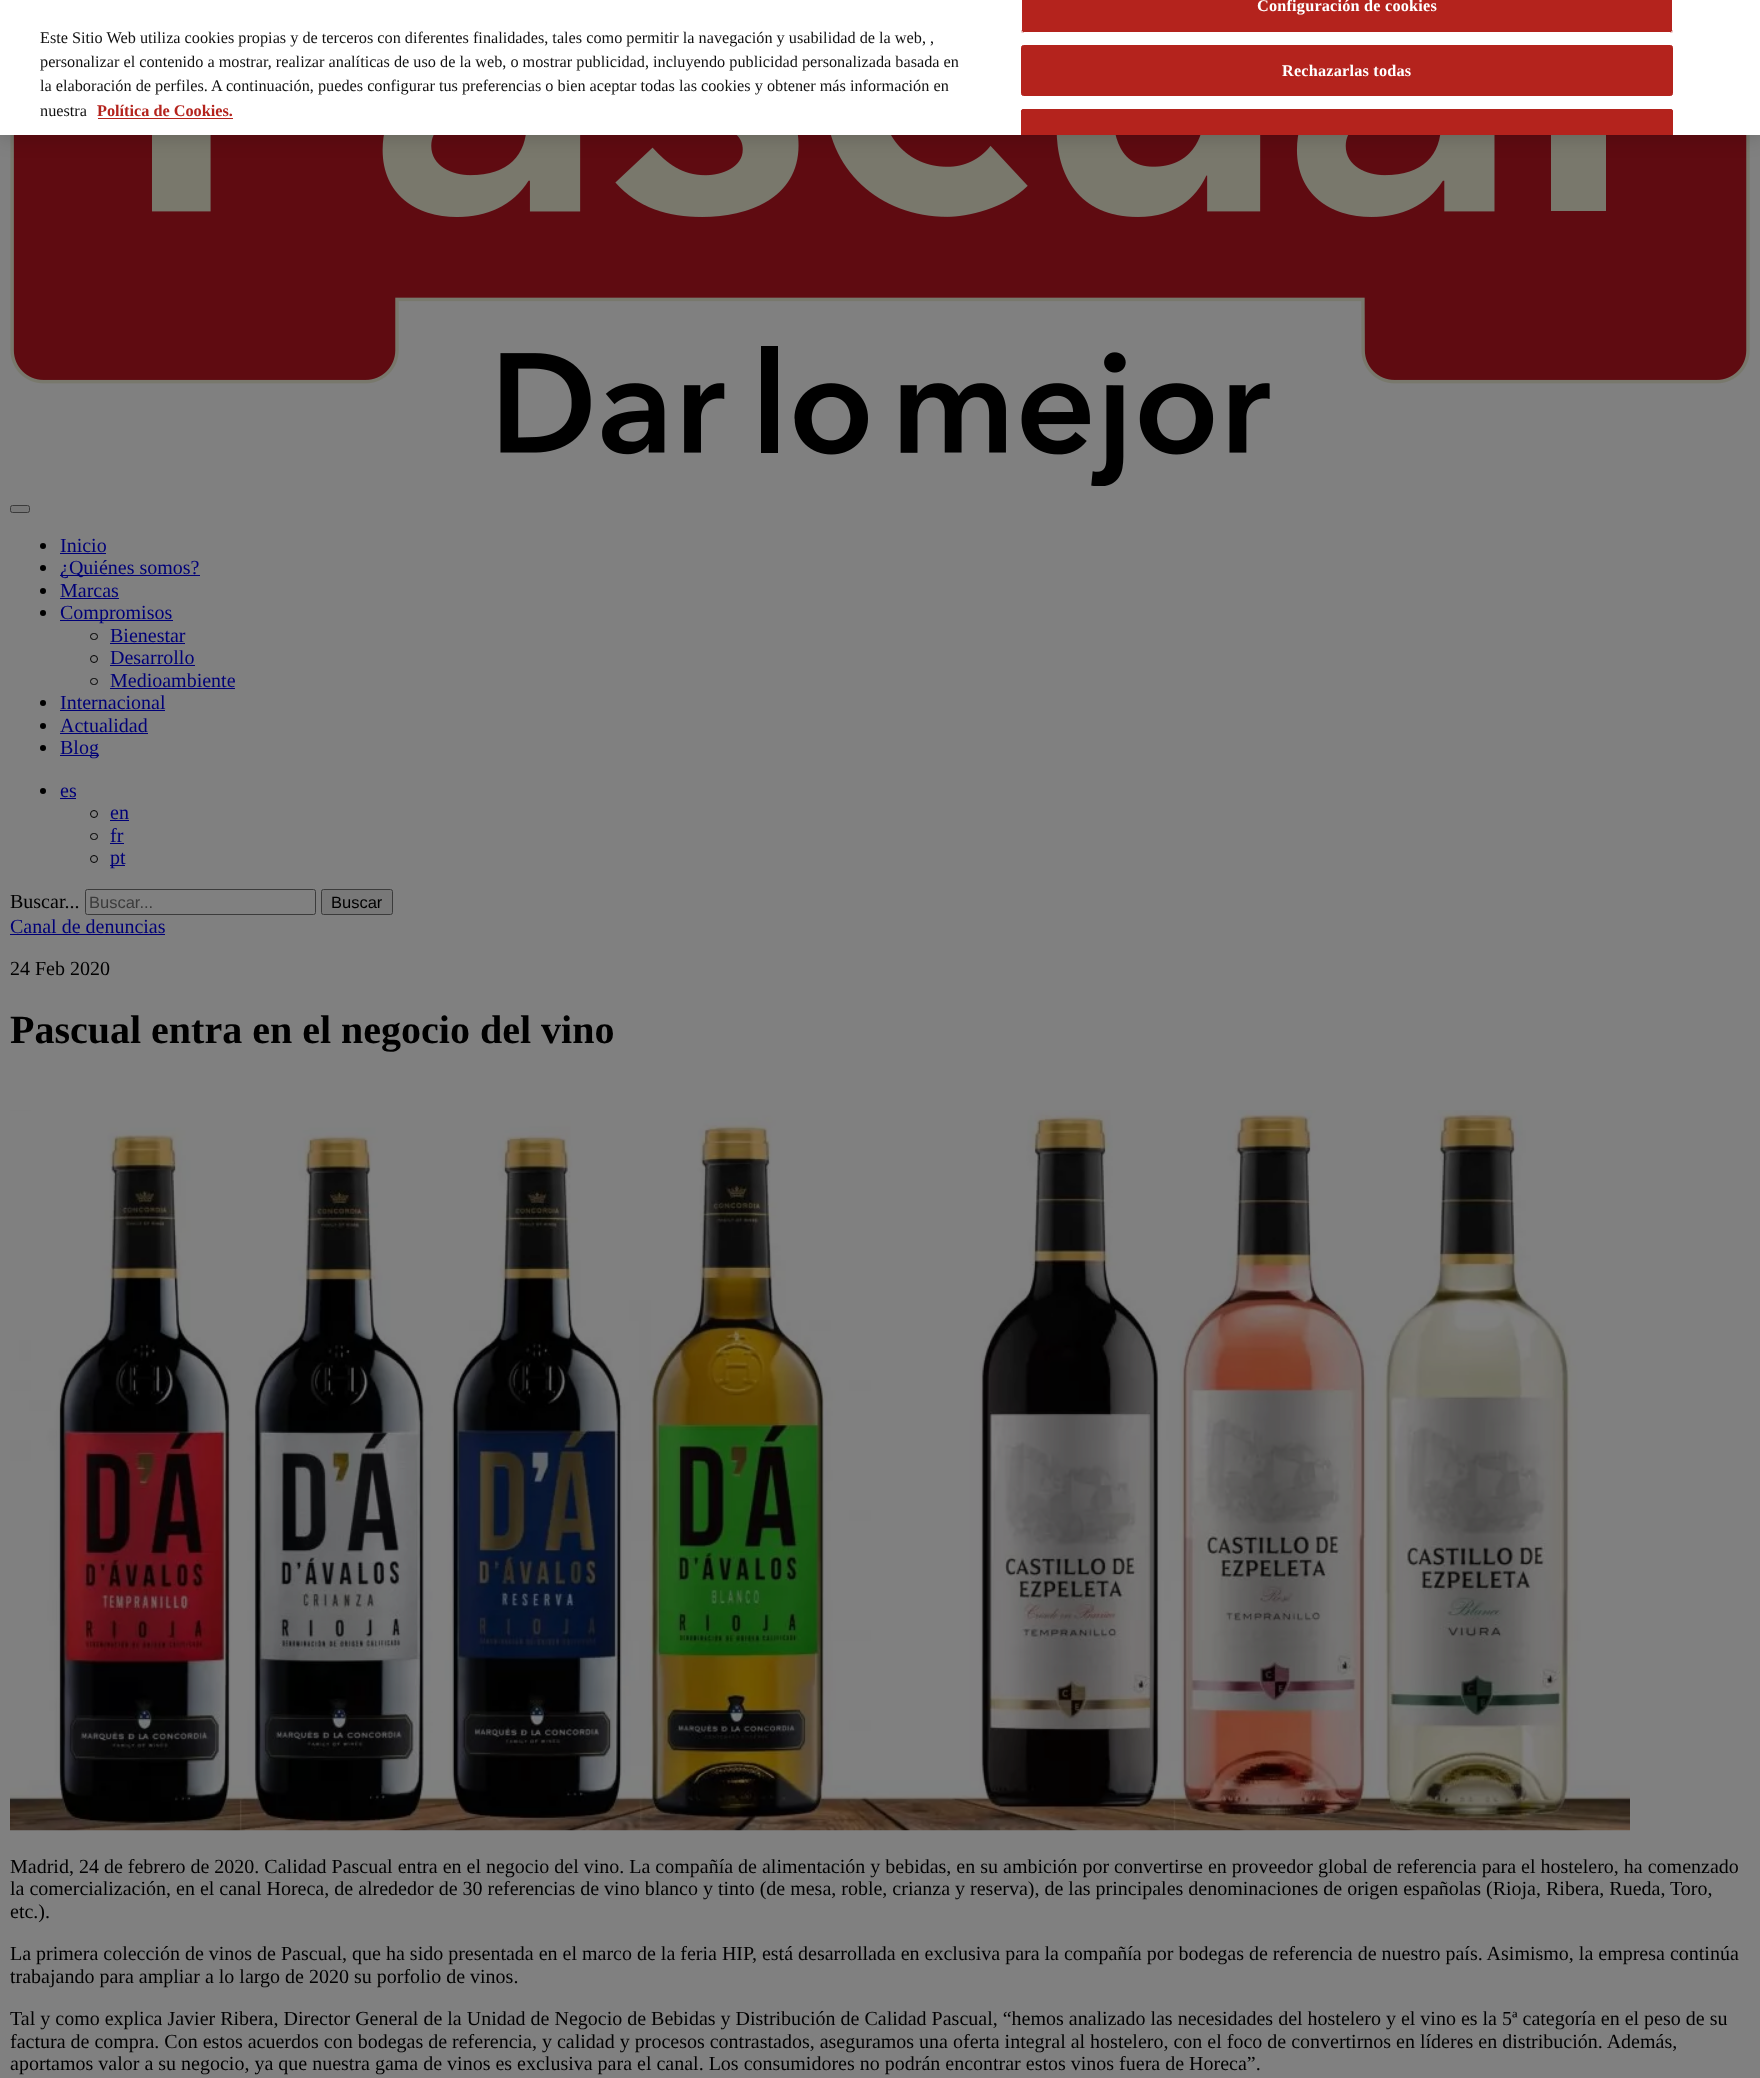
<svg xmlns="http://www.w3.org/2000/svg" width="1760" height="2078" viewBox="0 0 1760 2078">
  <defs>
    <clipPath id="clip1"><path d="M0 0h1760v135H0z"/></clipPath>
  </defs>
  <rect width="100%" height="100%" fill="#808080"/>
  <image x="10" y="135" width="1740" height="351" href="img/1.png"/>
  <path d="M0 0h1760v135H0z" fill="#00000033" filter="blur(11px)"/>
  <path d="M0 0h1760v135H0z" fill="#fff"/>
  <path d="M98 118h135v1H98z" fill="#b4231d"/>
  <path d="M1021 0H1673V30.5C1673 32 1672 33 1670.5 33H1023.5C1022 33 1021 32 1021 30.5Z" fill="#b4231d"/>
  <rect x="1021.5" y="-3.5" width="651" height="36" rx="2" fill="none" stroke="#fff"/>
  <rect x="1021.5" y="45.5" width="651" height="50" rx="2" fill="#b4231d" stroke="#b4231d"/>
  <path d="M1023.5 109H1670.5C1672 109 1673 110 1673 111.5V135H1021V111.5C1021 110 1022 109 1023.5 109Z" fill="#b4231d"/>
  <g clip-path="url(#clip1)">
    <rect x="1021.5" y="109.5" width="651" height="51" rx="2" fill="none" stroke="#b4231d"/>
  </g>
  <rect x="10.5" y="505.5" width="19" height="7" rx="2" fill="#787878" stroke="#3b3b3b"/>
  <circle cx="43" cy="546" r="3" fill="#000"/>
  <path d="M60 553h46v1H60z" fill="#007"/>
  <circle cx="43" cy="568" r="3" fill="#000"/>
  <path d="M60 575h140v1H60z" fill="#007"/>
  <circle cx="43" cy="591" r="3" fill="#000"/>
  <path d="M60 598h59v1H60z" fill="#007"/>
  <circle cx="43" cy="613" r="3" fill="#000"/>
  <path d="M60 620h113v1H60z" fill="#007"/>
  <rect x="90.5" y="633.5" width="7" height="6" rx="3" fill="none" stroke="#000"/>
  <path d="M110 643h75v1H110z" fill="#007"/>
  <circle cx="94" cy="659" r="3.5" fill="none" stroke="#000"/>
  <path d="M110 665h85v1H110z" fill="#007"/>
  <rect x="90.5" y="678.5" width="7" height="6" rx="3" fill="none" stroke="#000"/>
  <path d="M110 688h125v1H110z" fill="#007"/>
  <circle cx="43" cy="703" r="3" fill="#000"/>
  <path d="M60 710h105v1H60z" fill="#007"/>
  <circle cx="43" cy="726" r="3" fill="#000"/>
  <path d="M60 733h88v1H60z" fill="#007"/>
  <circle cx="43" cy="748" r="3" fill="#000"/>
  <path d="M60 755h39v1H60z" fill="#007"/>
  <circle cx="43" cy="791" r="3" fill="#000"/>
  <path d="M60 798h16v1H60z" fill="#007"/>
  <circle cx="94" cy="814" r="3.5" fill="none" stroke="#000"/>
  <path d="M110 820h19v1H110z" fill="#007"/>
  <rect x="90.5" y="833.5" width="7" height="6" rx="3" fill="none" stroke="#000"/>
  <path d="M110 843h14v1H110z" fill="#007"/>
  <circle cx="94" cy="859" r="3.5" fill="none" stroke="#000"/>
  <path d="M110 865h15v1H110z" fill="#007"/>
  <rect x="85.5" y="889.5" width="230" height="25" rx="2" fill="none" stroke="#3b3b3b"/>
  <rect x="321.5" y="889.5" width="71" height="25" rx="2" fill="#787878" stroke="#3b3b3b"/>
  <path d="M10 934h155v1H10z" fill="#007"/>
  <image x="10" y="1110" width="1620" height="721" href="img/2.png"/>
  <g font-family="Liberation Serif" font-size="16.25" fill="#111">
    <text x="40" y="43">Este Sitio Web utiliza cookies propias y de terceros con diferentes finalidades, tales como permitir la navegación y usabilidad de la web, ,</text>
    <text x="40" y="67">personalizar el contenido a mostrar, realizar analíticas de uso de la web, o mostrar publicidad, incluyendo publicidad personalizada basada en</text>
    <text x="40" y="91">la elaboración de perfiles. A continuación, puedes configurar tus preferencias o bien aceptar todas las cookies y obtener más información en</text>
    <text x="40" y="116">nuestra</text>
  </g>
  <text x="97" y="116" font-family="Liberation Serif" font-size="16.25" font-weight="bold" fill="#b4231d">Política de Cookies.</text>
  <g font-family="Liberation Serif" font-size="16.25" font-weight="bold" letter-spacing="0.2" fill="#fff">
    <text x="1257" y="11">Configuración de cookies</text>
    <text x="1282" y="76">Rechazarlas todas</text>
  </g>
  <g font-family="Liberation Serif" font-size="20" fill="#007">
    <text x="60" y="552">Inicio</text>
    <text x="60" y="574">¿Quiénes somos?</text>
    <text x="60" y="597">Marcas</text>
    <text x="60" y="619">Compromisos</text>
    <text x="110" y="642">Bienestar</text>
    <text x="110" y="664">Desarrollo</text>
    <text x="110" y="687">Medioambiente</text>
    <text x="60" y="709">Internacional</text>
    <text x="60" y="732">Actualidad</text>
    <text x="60" y="754">Blog</text>
    <text x="60" y="797">es</text>
    <text x="110" y="819">en</text>
    <text x="110" y="842">fr</text>
    <text x="110" y="864">pt</text>
  </g>
  <text x="10" y="908" font-family="Liberation Serif" font-size="20" fill="#000">Buscar...</text>
  <text x="89" y="908" font-family="Liberation Sans" font-size="16.5" fill="#3b3b3b">Buscar...</text>
  <text x="331" y="908" font-family="Liberation Sans" font-size="16.5" fill="#000">Buscar</text>
  <text x="10" y="933" font-family="Liberation Serif" font-size="20" fill="#007">Canal de denuncias</text>
  <text x="10" y="975" font-family="Liberation Serif" font-size="20" fill="#000">24 Feb 2020</text>
  <text x="10" y="1043" font-family="Liberation Serif" font-size="40" font-weight="bold" fill="#000">Pascual entra en el negocio del vino</text>
  <g font-family="Liberation Serif" font-size="20" fill="#000">
    <text x="10" y="1873">Madrid, 24 de febrero de 2020. Calidad Pascual entra en el negocio del vino. La compañía de alimentación y bebidas, en su ambición por convertirse en proveedor global de referencia para el hostelero, ha comenzado</text>
    <text x="10" y="1895">la comercialización, en el canal Horeca, de alrededor de 30 referencias de vino blanco y tinto (de mesa, roble, crianza y reserva), de las principales denominaciones de origen españolas (Rioja, Ribera, Rueda, Toro,</text>
    <text x="10" y="1918">etc.).</text>
    <text x="10" y="1960">La primera colección de vinos de Pascual, que ha sido presentada en el marco de la feria HIP, está desarrollada en exclusiva para la compañía por bodegas de referencia de nuestro país. Asimismo, la empresa continúa</text>
    <text x="10" y="1983">trabajando para ampliar a lo largo de 2020 su porfolio de vinos.</text>
    <text x="10" y="2025">Tal y como explica Javier Ribera, Director General de la Unidad de Negocio de Bebidas y Distribución de Calidad Pascual, “hemos analizado las necesidades del hostelero y el vino es la 5ª categoría en el peso de su</text>
    <text x="10" y="2048">factura de compra. Con estos acuerdos con bodegas de referencia, y calidad y procesos contrastados, aseguramos una oferta integral al hostelero, con el foco de convertirnos en líderes en distribución. Además,</text>
    <text x="10" y="2070">aportamos valor a su negocio, ya que nuestra gama de vinos es exclusiva para el canal. Los consumidores no podrán encontrar estos vinos fuera de Horeca”.</text>
  </g>
</svg>
